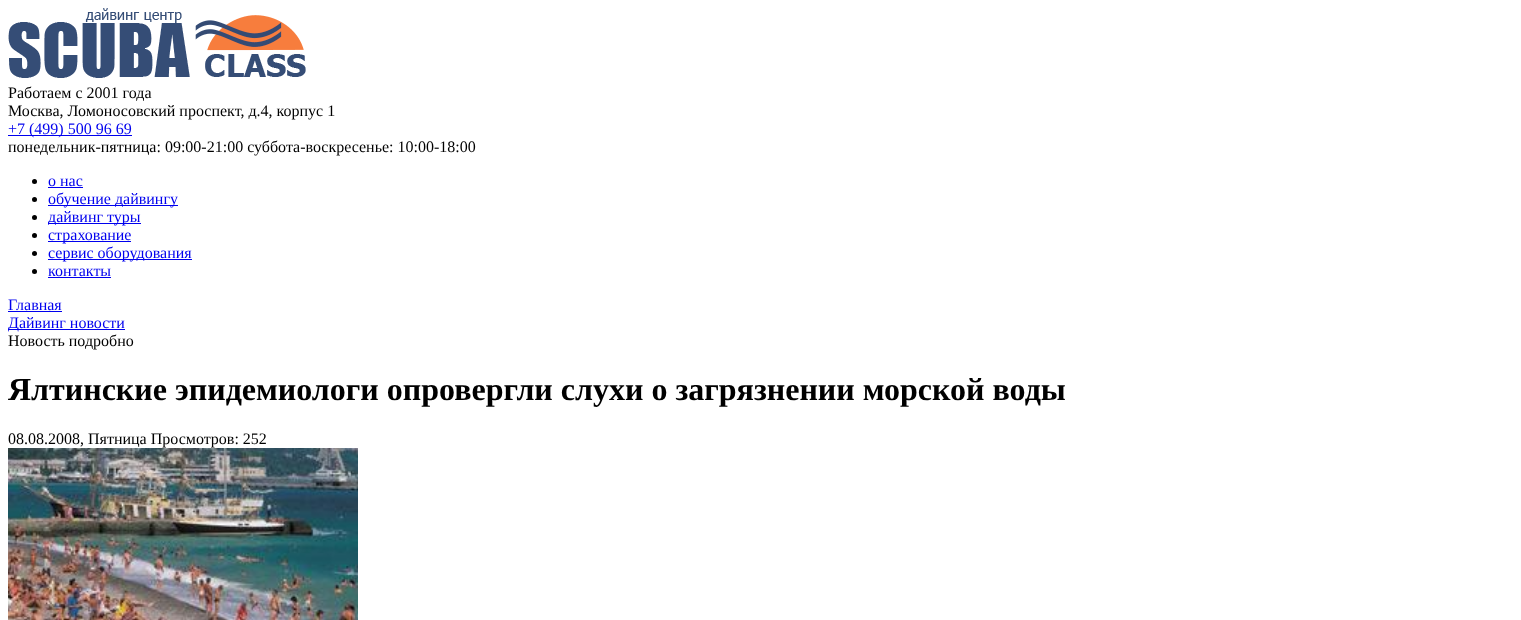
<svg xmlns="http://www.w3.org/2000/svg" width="1521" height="620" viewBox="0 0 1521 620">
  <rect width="100%" height="100%" fill="#fff"/>
  <image x="8" y="8" width="298" height="70" href="img/1.png"/>
  <path d="M8 135h124v1H8z" fill="#00e"/>
  <circle cx="34.5" cy="181.5" r="2.5" fill="#000"/>
  <path d="M48 187h35v1H48z" fill="#00e"/>
  <circle cx="34.5" cy="199.5" r="2.5" fill="#000"/>
  <path d="M48 205h130v1H48z" fill="#00e"/>
  <circle cx="34.5" cy="217.5" r="2.5" fill="#000"/>
  <path d="M48 223h93v1H48z" fill="#00e"/>
  <circle cx="34.5" cy="235.5" r="2.5" fill="#000"/>
  <path d="M48 241h83v1H48z" fill="#00e"/>
  <circle cx="34.5" cy="253.5" r="2.5" fill="#000"/>
  <path d="M48 259h144v1H48z" fill="#00e"/>
  <circle cx="34.5" cy="271.5" r="2.5" fill="#000"/>
  <path d="M48 277h63v1H48z" fill="#00e"/>
  <path d="M8 311h54v1H8z" fill="#00e"/>
  <path d="M8 329h117v1H8z" fill="#00e"/>
  <image x="8" y="448" width="350" height="172" href="img/2.png"/>
  <g font-family="Liberation Serif" font-size="16" fill="#000">
    <text x="8" y="98">Работаем с 2001 года</text>
    <text x="8" y="116">Москва, Ломоносовский проспект, д.4, корпус 1</text>
  </g>
  <text x="8" y="134" font-family="Liberation Serif" font-size="16" fill="#00e">+7 (499) 500 96 69</text>
  <text x="8" y="152" font-family="Liberation Serif" font-size="16" fill="#000">понедельник-пятница: 09:00-21:00 суббота-воскресенье: 10:00-18:00</text>
  <g font-family="Liberation Serif" font-size="16" fill="#00e">
    <text x="48" y="186">о нас</text>
    <text x="48" y="204">обучение дайвингу</text>
    <text x="48" y="222">дайвинг туры</text>
    <text x="48" y="240">страхование</text>
    <text x="48" y="258">сервис оборудования</text>
    <text x="48" y="276">контакты</text>
    <text x="8" y="310">Главная</text>
    <text x="8" y="328">Дайвинг новости</text>
  </g>
  <text x="8" y="346" font-family="Liberation Serif" font-size="16" fill="#000">Новость подробно</text>
  <text x="8" y="400" font-family="Liberation Serif" font-size="32" font-weight="bold" fill="#000">Ялтинские эпидемиологи опровергли слухи о загрязнении морской воды</text>
  <text x="8" y="444" font-family="Liberation Serif" font-size="16" fill="#000">08.08.2008, Пятница Просмотров: 252</text>
</svg>
